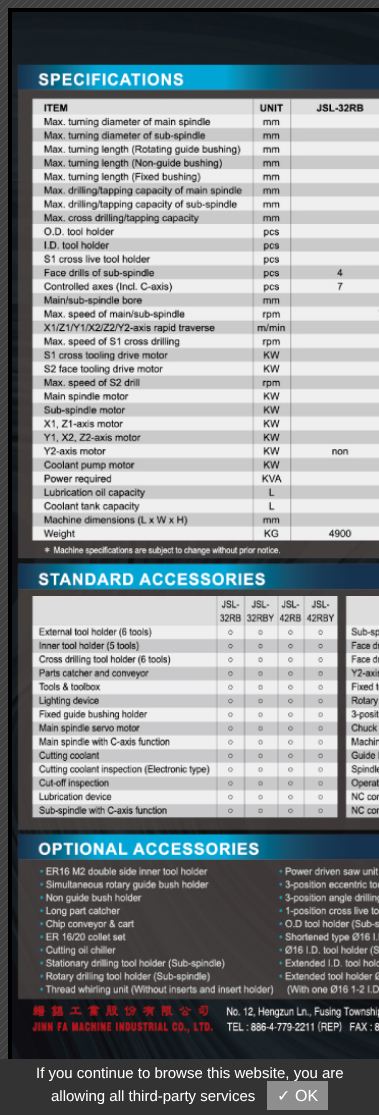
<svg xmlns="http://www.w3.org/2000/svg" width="379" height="1115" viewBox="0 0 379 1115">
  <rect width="100%" height="100%" fill="#fff"/>
  <image x="0" y="0" width="379" height="1059" href="img/1.png"/>
  <path d="M8 8h371v1051H8z" fill="#000"/>
  <image x="12" y="12" width="367" height="1047" href="img/2.png"/>
  <path d="M0 1059h379v56H0z" fill="#333"/>
  <g font-family="Liberation Sans" font-size="15" fill="#fff">
    <text x="36" y="1078">If you continue to browse this website, you are</text>
    <text x="51" y="1101">allowing all third-party services</text>
  </g>
  <path d="M267 1081h61v29H267z" fill="#a09f9fd9"/>
  <text x="277" y="1101" font-family="DejaVu Sans" font-size="16" fill="#fff">✓</text>
  <text x="295" y="1101" font-family="Liberation Sans" font-size="16" fill="#fff">OK</text>
</svg>
